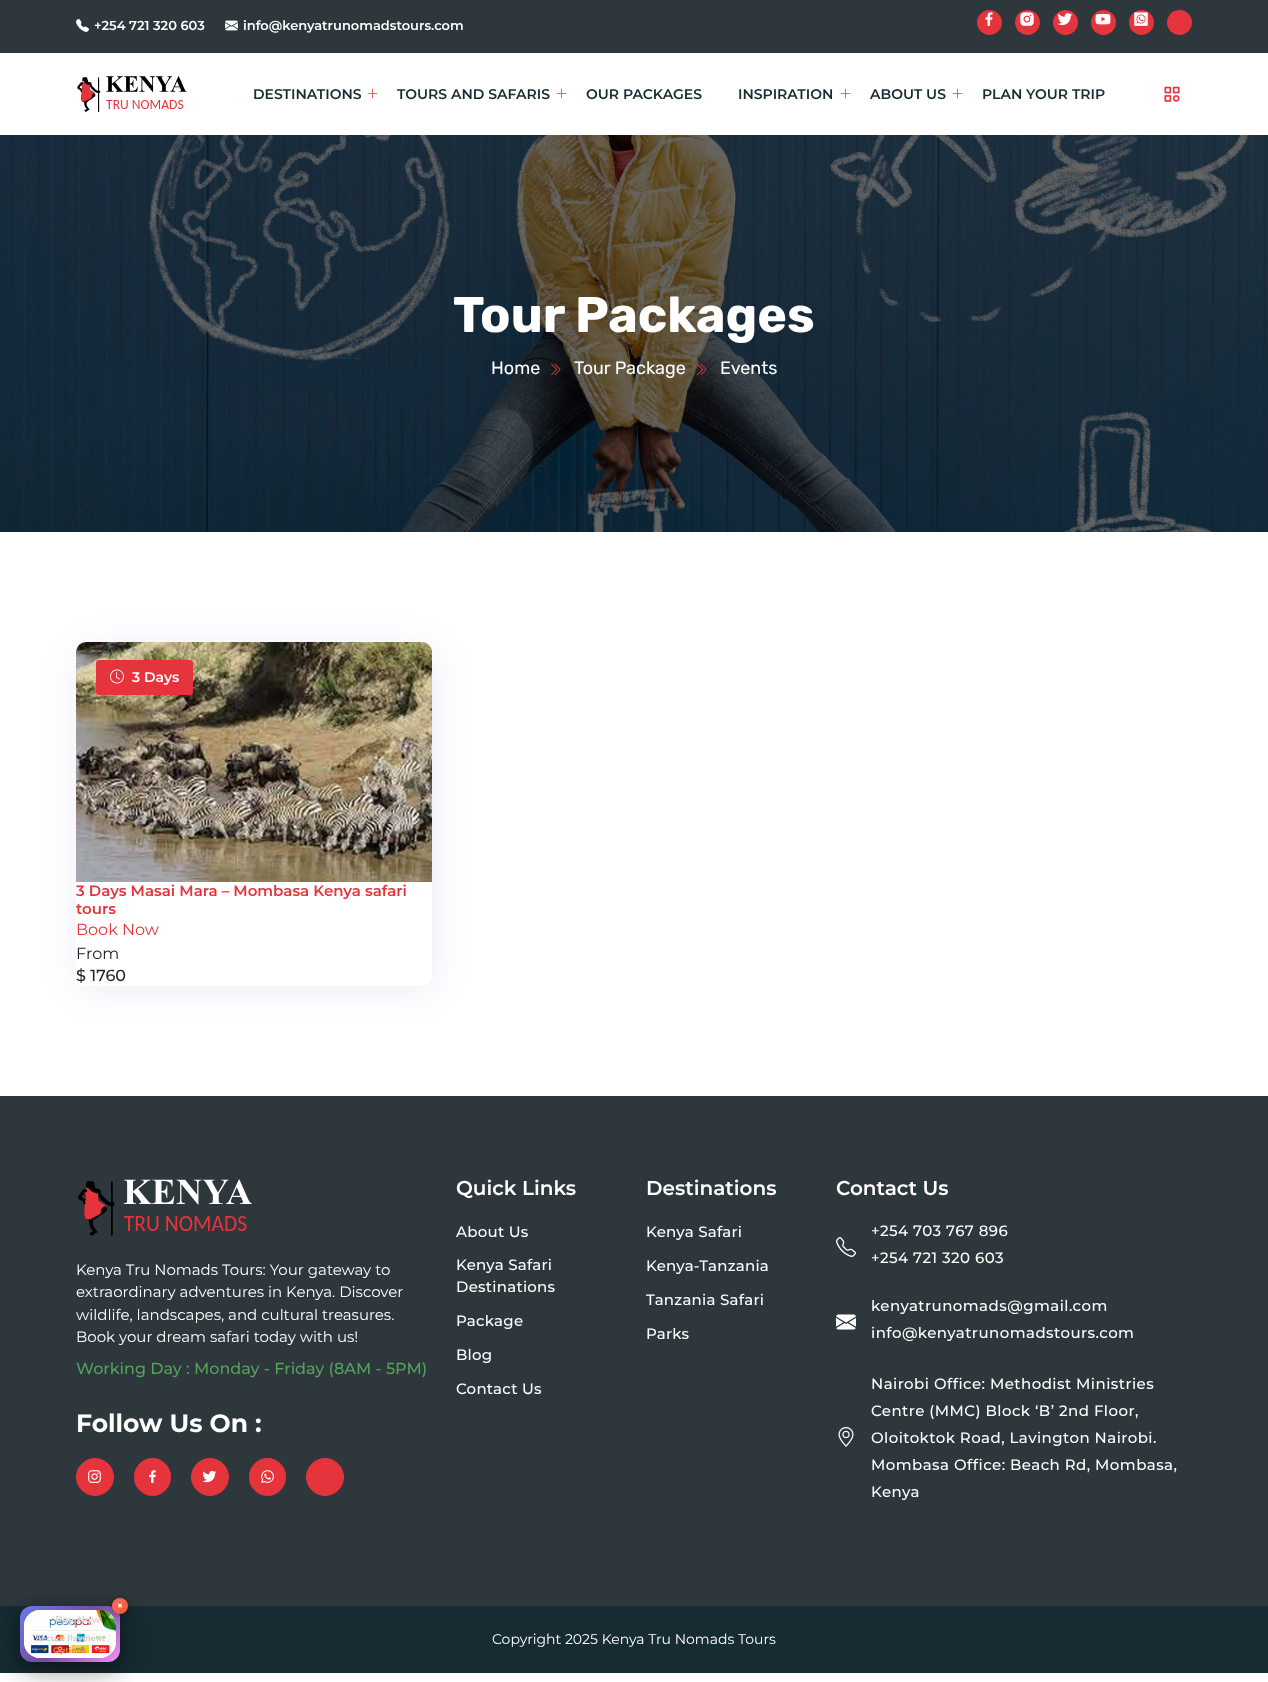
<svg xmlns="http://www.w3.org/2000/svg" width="1268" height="1682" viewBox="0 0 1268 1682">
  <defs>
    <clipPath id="clip1"><path d="M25 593H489V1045H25ZM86 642H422C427.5 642 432 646.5 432 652V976C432 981.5 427.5 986 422 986H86C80.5 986 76 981.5 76 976V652C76 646.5 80.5 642 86 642Z" clip-rule="evenodd"/></clipPath>
    <linearGradient id="g1" gradientUnits="userSpaceOnUse" x1="31" y1="1595" x2="109" y2="1673"><stop offset="0" stop-color="#667eea"/><stop offset="0.5" stop-color="#764ba2"/><stop offset="1" stop-color="#f093fb"/></linearGradient>
    <linearGradient id="g2" gradientUnits="userSpaceOnUse" x1="112" y1="1598" x2="128" y2="1614"><stop offset="0" stop-color="#ff6b6b"/><stop offset="1" stop-color="#ee5a24"/></linearGradient>
  </defs>
  <rect width="100%" height="100%" fill="#fff"/>
  <path d="M0 0h1268v53H0z" fill="#2d373c"/>
  <image x="76" y="19" width="13" height="13" href="img/1.png"/>
  <image x="225" y="20" width="13" height="11" href="img/2.png"/>
  <circle cx="989.5" cy="22.5" r="12.5" fill="#e6343d"/>
  <image x="985" y="12" width="8" height="14" href="img/3.png"/>
  <circle cx="1027.5" cy="22.5" r="12.5" fill="#e6343d"/>
  <image x="1020" y="12" width="14" height="14" href="img/4.png"/>
  <circle cx="1065.5" cy="22.5" r="12.5" fill="#e6343d"/>
  <image x="1057" y="13" width="16" height="13" href="img/5.png"/>
  <circle cx="1103.5" cy="22.5" r="12.5" fill="#e6343d"/>
  <image x="1095" y="13" width="16" height="12" href="img/6.png"/>
  <circle cx="1141.5" cy="22.5" r="12.5" fill="#e6343d"/>
  <image x="1134" y="12" width="14" height="14" href="img/7.png"/>
  <circle cx="1179.5" cy="22.5" r="12.5" fill="#e6343d"/>
  <image x="77" y="76" width="110" height="36" href="img/8.png"/>
  <image x="367" y="88" width="11" height="11" href="img/9.png"/>
  <image x="556" y="88" width="11" height="11" href="img/9.png"/>
  <image x="840" y="88" width="11" height="11" href="img/9.png"/>
  <image x="952" y="88" width="11" height="11" href="img/9.png"/>
  <image x="1164" y="86" width="16" height="16" href="img/10.png"/>
  <image x="0" y="135" width="1268" height="397" href="img/11.png"/>
  <image x="551" y="363" width="10" height="13" href="img/12.png"/>
  <image x="697" y="363" width="10" height="13" href="img/13.png"/>
  <g clip-path="url(#clip1)">
    <rect x="79" y="647" width="356" height="344" rx="10" fill="#5644a91a" filter="blur(17.5px)"/>
  </g>
  <image x="76" y="642" width="356" height="240" href="img/14.png"/>
  <rect x="96" y="660" width="97" height="35" rx="3" fill="#e6343d"/>
  <image x="110" y="669" width="14" height="15" href="img/15.png"/>
  <path d="M0 1096h1268v510H0z" fill="#2d373c"/>
  <image x="78" y="1179" width="174" height="57" href="img/16.png"/>
  <circle cx="95" cy="1477" r="18.5" fill="#e6343d" stroke="#e6343d"/>
  <image x="88" y="1470" width="13" height="13" href="img/17.png"/>
  <rect x="134.5" y="1458.5" width="36" height="37" rx="18" fill="#e6343d" stroke="#e6343d"/>
  <image x="149" y="1470" width="7" height="13" href="img/18.png"/>
  <circle cx="210" cy="1477" r="18.5" fill="#e6343d" stroke="#e6343d"/>
  <image x="202" y="1470" width="15" height="13" href="img/19.png"/>
  <rect x="249.5" y="1458.5" width="36" height="37" rx="18" fill="#e6343d" stroke="#e6343d"/>
  <image x="261" y="1470" width="13" height="13" href="img/20.png"/>
  <circle cx="325" cy="1477" r="18.5" fill="#e6343d" stroke="#e6343d"/>
  <image x="836" y="1237" width="20" height="20" href="img/21.png"/>
  <image x="836" y="1314" width="20" height="16" href="img/22.png"/>
  <image x="838" y="1427" width="16" height="20" href="img/23.png"/>
  <path d="M0 1606h1268v67H0z" fill="#162b32"/>
  <rect x="20" y="1611" width="100" height="56" rx="12" fill="#00000033" filter="blur(7.5px)"/>
  <rect x="20" y="1616" width="100" height="56" rx="12" fill="#0000004d" filter="blur(15px)"/>
  <rect x="20" y="1606" width="100" height="56" rx="12" fill="url(#g1)"/>
  <rect x="24" y="1610" width="92" height="48" rx="16" fill="#fff"/>
  <image x="24" y="1610" width="92" height="48" href="img/24.png"/>
  <rect x="112" y="1600" width="16" height="16" rx="8" fill="#0000004d" filter="blur(4px)"/>
  <circle cx="120" cy="1606" r="8" fill="url(#g2)"/>
  <g font-family="Montserrat" font-size="13" font-weight="600" fill="#fff">
    <text x="94" y="30">+254 721 320 603</text>
    <text x="243" y="30">info@kenyatrunomadstours.com</text>
  </g>
  <g font-family="Montserrat" font-size="14" font-weight="600" fill="#162b32">
    <text x="253" y="99">DESTINATIONS</text>
    <text x="397" y="99">TOURS AND SAFARIS</text>
    <text x="586" y="99">OUR PACKAGES</text>
    <text x="738" y="99">INSPIRATION</text>
    <text x="870" y="99">ABOUT US</text>
    <text x="982" y="99">PLAN YOUR TRIP</text>
  </g>
  <text x="453" y="332" font-family="Rubik" font-size="50" font-weight="bold" fill="#fff">Tour Packages</text>
  <g font-family="Rubik" font-size="18" fill="#fff">
    <text x="491" y="374">Home</text>
    <text x="574" y="374">Tour Package</text>
    <text x="720" y="374">Events</text>
  </g>
  <text x="132" y="682" font-family="Montserrat" font-size="14" font-weight="600" fill="#fff">3 Days</text>
  <g font-family="Montserrat" font-size="15" font-weight="600" fill="#e6343d">
    <text x="76" y="896">3 Days Masai Mara – Mombasa Kenya safari</text>
    <text x="76" y="914">tours</text>
  </g>
  <text x="76" y="935" font-family="Montserrat" font-size="16" fill="#e6343d">Book Now</text>
  <text x="76" y="959" font-family="Montserrat" font-size="16" fill="#212529">From</text>
  <text x="76" y="981" font-family="Montserrat" font-size="16" font-weight="500" fill="#212529">$ 1760</text>
  <g font-family="Montserrat" font-size="15" fill="#fff">
    <text x="76" y="1275">Kenya Tru Nomads Tours: Your gateway to</text>
    <text x="76" y="1297">extraordinary adventures in Kenya. Discover</text>
    <text x="76" y="1320">wildlife, landscapes, and cultural treasures.</text>
    <text x="76" y="1342">Book your dream safari today with us!</text>
  </g>
  <text x="76" y="1374" font-family="Montserrat" font-size="16" font-weight="500" fill="#54a15d">Working Day : Monday - Friday (8AM - 5PM)</text>
  <text x="76" y="1432" font-family="Montserrat" font-size="25" font-weight="bold" fill="#fff">Follow Us On :</text>
  <text x="456" y="1195" font-family="Montserrat" font-size="20" font-weight="600" fill="#fff">Quick Links</text>
  <g font-family="Montserrat" font-size="15" font-weight="500" letter-spacing="0.25" fill="#fff">
    <text x="456" y="1237">About Us</text>
    <text x="456" y="1270">Kenya Safari</text>
    <text x="456" y="1292">Destinations</text>
    <text x="456" y="1326">Package</text>
    <text x="456" y="1360">Blog</text>
    <text x="456" y="1394">Contact Us</text>
  </g>
  <text x="646" y="1195" font-family="Montserrat" font-size="20" font-weight="600" fill="#fff">Destinations</text>
  <g font-family="Montserrat" font-size="15" font-weight="500" letter-spacing="0.25" fill="#fff">
    <text x="646" y="1237">Kenya Safari</text>
    <text x="646" y="1271">Kenya-Tanzania</text>
    <text x="646" y="1305">Tanzania Safari</text>
    <text x="646" y="1339">Parks</text>
  </g>
  <text x="836" y="1195" font-family="Montserrat" font-size="20" font-weight="600" fill="#fff">Contact Us</text>
  <g font-family="Montserrat" font-size="15" font-weight="500" letter-spacing="0.45" fill="#fff">
    <text x="871" y="1236">+254 703 767 896</text>
    <text x="871" y="1263">+254 721 320 603</text>
    <text x="871" y="1311">kenyatrunomads@gmail.com</text>
    <text x="871" y="1338">info@kenyatrunomadstours.com</text>
    <text x="871" y="1389">Nairobi Office: Methodist Ministries</text>
    <text x="871" y="1416">Centre (MMC) Block ‘B’ 2nd Floor,</text>
    <text x="871" y="1443">Oloitoktok Road, Lavington Nairobi.</text>
    <text x="871" y="1470">Mombasa Office: Beach Rd, Mombasa,</text>
    <text x="871" y="1497">Kenya</text>
  </g>
  <text x="492" y="1644" font-family="Montserrat" font-size="14" fill="#fff">Copyright 2025 Kenya Tru Nomads Tours</text>
  <text x="117" y="1609" font-family="Montserrat" font-size="10" font-weight="bold" fill="#fff">×</text>
  <text x="55" y="1623" font-family="Montserrat" font-size="10" font-weight="bold" fill="#dcdadf">Pay Now</text>
  <text x="36" y="1641" font-family="Montserrat" font-size="8" font-weight="bold" fill="#cfd1d2">Secure Payment</text>
  <text x="53" y="1653" font-family="Montserrat" font-size="8" font-weight="bold" fill="#da8548">Options</text>
</svg>
